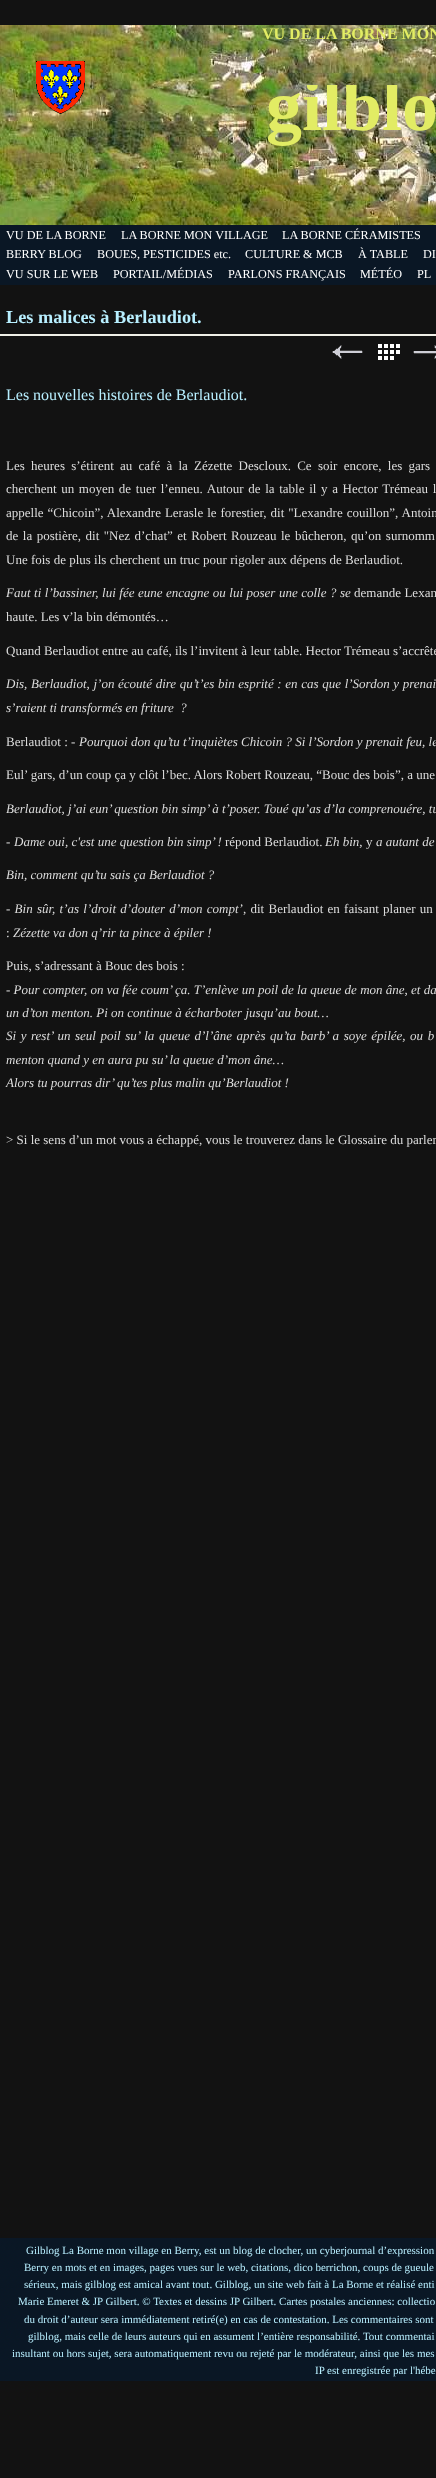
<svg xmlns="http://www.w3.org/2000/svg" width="436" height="2478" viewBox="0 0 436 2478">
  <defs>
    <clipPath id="clip1"><path d="M250 85h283v90H250z"/></clipPath>
  </defs>
  <rect width="100%" height="100%" fill="#121212"/>
  <image x="0" y="25" width="436" height="200" href="img/1.png"/>
  <image x="36" y="61" width="49" height="53" href="img/2.png"/>
  <path d="M0 225h436v60H0z" fill="#0a1725"/>
  <path d="M0 334h436v2H0z" fill="#efefe7"/>
  <image x="332" y="345" width="31" height="14" href="img/3.png"/>
  <image x="378" y="344" width="22" height="16" href="img/4.png"/>
  <image x="413" y="345" width="23" height="14" href="img/5.png"/>
  <path d="M0 2238h436v143H0z" fill="#0a1725"/>
  <text x="262" y="39" font-family="Liberation Serif" font-size="16" font-weight="bold" fill="#e2ec64">VU DE LA BORNE MON</text>
  <g clip-path="url(#clip1)">
    <text x="266" y="130" font-family="Liberation Serif" font-size="72" font-weight="bold" fill="#e2ec64">gilblo</text>
  </g>
  <g font-family="Liberation Serif" font-size="12.2" fill="#fff">
    <text x="6" y="239">VU DE LA BORNE</text>
    <text x="121" y="239">LA BORNE MON VILLAGE</text>
    <text x="282" y="239">LA BORNE CÉRAMISTES</text>
    <text x="6" y="258">BERRY BLOG</text>
    <text x="97" y="258">BOUES, PESTICIDES etc.</text>
    <text x="245" y="258">CULTURE &amp; MCB</text>
    <text x="358" y="258">À TABLE</text>
    <text x="423" y="258">DI</text>
    <text x="6" y="278">VU SUR LE WEB</text>
    <text x="113" y="278">PORTAIL/MÉDIAS</text>
    <text x="228" y="278">PARLONS FRANÇAIS</text>
    <text x="360" y="278">MÉTÉO</text>
    <text x="417" y="278">PL</text>
  </g>
  <text x="6" y="323" font-family="Liberation Serif" font-size="18.25" font-weight="bold" fill="#b8efff">Les malices à Berlaudiot.</text>
  <text x="6" y="400" font-family="Liberation Serif" font-size="16" fill="#b8efff">Les nouvelles histoires de Berlaudiot.</text>
  <g font-family="Liberation Serif" font-size="13" fill="#ddd">
    <text x="6" y="470" word-spacing="3">Les heures s’étirent au café à la Zézette Descloux. Ce soir encore, les gars</text>
    <text x="6" y="493" word-spacing="1.4">cherchent un moyen de tuer l’enneu. Autour de la table il y a Hector Trémeau l</text>
    <text x="6" y="517" word-spacing="0.75">appelle “Chicoin”, Alexandre Lerasle le forestier, dit "Lexandre couillon”, Antoin</text>
    <text x="6" y="540" word-spacing="1.25">de la postière, dit "Nez d’chat” et Robert Rouzeau le bûcheron, qu’on surnomm</text>
    <text x="6" y="564">Une fois de plus ils cherchent un truc pour rigoler aux dépens de Berlaudiot.</text>
  </g>
  <text x="6" y="597" word-spacing="0.25" font-family="Liberation Serif" font-size="13" font-style="italic" fill="#ddd">Faut ti l’bassiner, lui fée eune encagne ou lui poser une colle ? se</text>
  <g font-family="Liberation Serif" font-size="13" fill="#ddd">
    <text x="354" y="597" word-spacing="0.25">demande Lexan</text>
    <text x="6" y="621">haute. Les v’la bin démontés…</text>
    <text x="6" y="655">Quand Berlaudiot entre au café, ils l’invitent à leur table. Hector Trémeau s’accrête</text>
  </g>
  <g font-family="Liberation Serif" font-size="13" font-style="italic" fill="#ddd">
    <text x="6" y="688" word-spacing="0.4">Dis, Berlaudiot, j’on écouté dire qu’t’es bin esprité : en cas que l’Sordon y prenai</text>
    <text x="6" y="712" xml:space="preserve">s’raient ti transformés en friture  ?</text>
  </g>
  <text x="6" y="746" font-family="Liberation Serif" font-size="13" fill="#ddd">Berlaudiot : -</text>
  <text x="79" y="746" font-family="Liberation Serif" font-size="13" font-style="italic" fill="#ddd">Pourquoi don qu’tu t’inquiètes Chicoin ? Si l’Sordon y prenait feu, le</text>
  <text x="6" y="779" font-family="Liberation Serif" font-size="13" fill="#ddd">Eul’ gars, d’un coup ça y clôt l’bec. Alors Robert Rouzeau, “Bouc des bois”, a une</text>
  <text x="6" y="813" font-family="Liberation Serif" font-size="13" font-style="italic" fill="#ddd">Berlaudiot, j’ai eun’ question bin simp’ à t’poser. Toué qu’as d’la comprenouére, tu</text>
  <text x="6" y="846" font-family="Liberation Serif" font-size="13" fill="#ddd">-</text>
  <text x="14" y="846" font-family="Liberation Serif" font-size="13" font-style="italic" fill="#ddd">Dame oui, c'est une question bin simp’ !</text>
  <text x="225" y="846" font-family="Liberation Serif" font-size="13" fill="#ddd">répond Berlaudiot.</text>
  <text x="325" y="846" font-family="Liberation Serif" font-size="13" font-style="italic" fill="#ddd">Eh bin,</text>
  <text x="366" y="846" font-family="Liberation Serif" font-size="13" fill="#ddd">y</text>
  <g font-family="Liberation Serif" font-size="13" font-style="italic" fill="#ddd">
    <text x="376" y="846">a autant de</text>
    <text x="6" y="879">Bin, comment qu’tu sais ça Berlaudiot ?</text>
    <text x="6" y="913" word-spacing="1">- Bin sûr, t’as l’droit d’douter d’mon compt’</text>
  </g>
  <g font-family="Liberation Serif" font-size="13" fill="#ddd">
    <text x="243" y="913" word-spacing="1">, dit Berlaudiot en faisant planer un</text>
    <text x="6" y="937">:</text>
  </g>
  <text x="13" y="937" font-family="Liberation Serif" font-size="13" font-style="italic" fill="#ddd">Zézette va don q’rir ta pince à épiler !</text>
  <text x="6" y="970" font-family="Liberation Serif" font-size="13" fill="#ddd">Puis, s’adressant à Bouc des bois :</text>
  <g font-family="Liberation Serif" font-size="13" font-style="italic" fill="#ddd">
    <text x="6" y="994">- Pour compter, on va fée coum’ ça. T’enlève un poil de la queue de mon âne, et da</text>
    <text x="6" y="1017">un d’ton menton. Pi on continue à écharboter jusqu’au bout…</text>
    <text x="6" y="1040" word-spacing="1.3">Si y rest’ un seul poil su’ la queue d’l’âne après qu’ta barb’ a soye épilée, ou b</text>
    <text x="6" y="1064">menton quand y en aura pu su’ la queue d’mon âne…</text>
    <text x="6" y="1087">Alors tu pourras dir’ qu’tes plus malin qu’Berlaudiot !</text>
  </g>
  <text x="6" y="1144" font-family="Liberation Serif" font-size="13" fill="#ddd">&gt; Si le sens d’un mot vous a échappé, vous le trouverez dans le Glossaire du parler</text>
  <g font-family="Liberation Serif" font-size="11" fill="#b8efff">
    <text x="26" y="2254">Gilblog La Borne mon village en Berry, est un blog de clocher, un cyberjournal d’expression</text>
    <text x="24" y="2271">Berry en mots et en images, pages vues sur le web, citations, dico berrichon, coups de gueule</text>
    <text x="24" y="2288">sérieux, mais gilblog est amical avant tout. Gilblog, un site web fait à La Borne et réalisé enti</text>
    <text x="18" y="2305">Marie Emeret &amp; JP Gilbert. © Textes et dessins JP Gilbert. Cartes postales anciennes: collectio</text>
    <text x="24" y="2323">du droit d’auteur sera immédiatement retiré(e) en cas de contestation. Les commentaires sont</text>
    <text x="28" y="2340">gilblog, mais celle de leurs auteurs qui en assument l’entière responsabilité. Tout commentai</text>
    <text x="12" y="2357">insultant ou hors sujet, sera automatiquement revu ou rejeté par le modérateur, ainsi que les mes</text>
    <text x="315" y="2374">IP est enregistrée par l'hébe</text>
  </g>
</svg>
